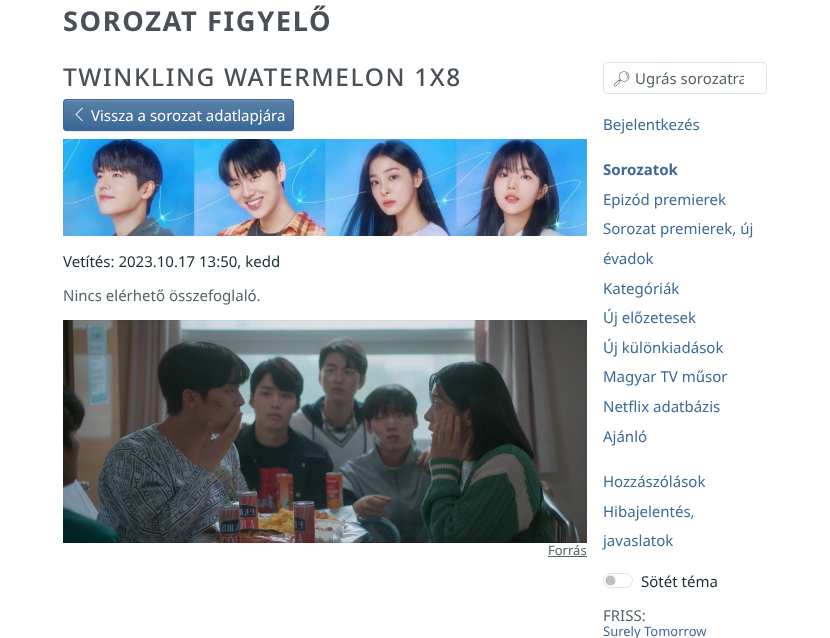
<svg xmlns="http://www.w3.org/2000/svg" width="830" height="638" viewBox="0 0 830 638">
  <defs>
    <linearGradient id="g1" gradientUnits="userSpaceOnUse" x1="179" y1="100" x2="179" y2="130"><stop offset="0" stop-color="#fff" stop-opacity="0.15"/><stop offset="1" stop-color="#fff" stop-opacity="0"/></linearGradient>
    <clipPath id="clip1"><path d="M612 68h132v20H612z"/></clipPath>
  </defs>
  <rect width="100%" height="100%" fill="#fff"/>
  <rect x="63" y="100" width="231" height="32" rx="4" fill="#00000012" filter="blur(0.5px)"/>
  <rect x="63" y="99" width="231" height="32" rx="4" fill="#3c6997"/>
  <path d="M63 100h231v26H63z" fill="url(#g1)"/>
  <path d="M67 101H290C292 101 293 102 293 104V103C293 101 292 100 290 100H67C65 100 64 101 64 103V104C64 102 65 101 67 101Z" fill="#7292b4"/>
  <rect x="63.5" y="99.5" width="230" height="31" rx="3.5" fill="none" stroke="#3c6997"/>
  <image x="75" y="107" width="8" height="15" href="img/1.png"/>
  <image x="63" y="139" width="524" height="97" href="img/2.png"/>
  <image x="63" y="320" width="524" height="223" href="img/3.png"/>
  <path d="M548 556h39v1H548z" fill="#546366"/>
  <rect x="603.5" y="62.5" width="163" height="31" rx="3.5" fill="none" stroke="#dee2e6"/>
  <circle cx="610.5" cy="580.5" r="5" fill="#bfbfbf"/>
  <rect x="603.5" y="573.5" width="29" height="14" rx="7" fill="none" stroke="#dee2e6"/>
  <text x="63" y="31" font-family="Noto Sans" font-size="27.25" font-weight="bold" letter-spacing="1.6" fill="#495057">SOROZAT FIGYELŐ</text>
  <text x="63" y="86" font-family="Noto Sans" font-size="24.5" font-weight="500" letter-spacing="1.6" fill="#495057">TWINKLING WATERMELON 1X8</text>
  <text x="91" y="121" font-family="Noto Sans" font-size="15" fill="#fff">Vissza a sorozat adatlapjára</text>
  <text x="63" y="267" font-family="Noto Sans" font-size="15" fill="#1b2f33">Vetítés: 2023.10.17 13:50, kedd</text>
  <text x="63" y="301" font-family="Noto Sans" font-size="15" fill="#546366">Nincs elérhető összefoglaló.</text>
  <text x="548" y="555" font-family="Noto Sans" font-size="13" fill="#546366">Forrás</text>
  <text x="612" y="84" font-family="Noto Emoji" font-size="15" fill="#546366">🔎︎</text>
  <g clip-path="url(#clip1)">
    <text x="635" y="84" font-family="Noto Sans" font-size="15" fill="#546366">Ugrás sorozatra</text>
  </g>
  <text x="603" y="130" font-family="Noto Sans" font-size="15" fill="#3c6997">Bejelentkezés</text>
  <text x="603" y="175" font-family="Noto Sans" font-size="15" font-weight="bold" fill="#3c6997">Sorozatok</text>
  <g font-family="Noto Sans" font-size="15" fill="#3c6997">
    <text x="603" y="205">Epizód premierek</text>
    <text x="603" y="234">Sorozat premierek, új</text>
    <text x="603" y="264">évadok</text>
    <text x="603" y="294">Kategóriák</text>
    <text x="603" y="323">Új előzetesek</text>
    <text x="603" y="353">Új különkiadások</text>
    <text x="603" y="382">Magyar TV műsor</text>
    <text x="603" y="412">Netflix adatbázis</text>
    <text x="603" y="442">Ajánló</text>
    <text x="603" y="487">Hozzászólások</text>
    <text x="603" y="517">Hibajelentés,</text>
    <text x="603" y="546">javaslatok</text>
  </g>
  <text x="641" y="587" font-family="Noto Sans" font-size="15" fill="#1b2f33">Sötét téma</text>
  <text x="603" y="621" font-family="Noto Sans" font-size="15" fill="#546366">FRISS:</text>
  <text x="603" y="636" font-family="Noto Sans" font-size="13" fill="#3c6997">Surely Tomorrow</text>
</svg>
